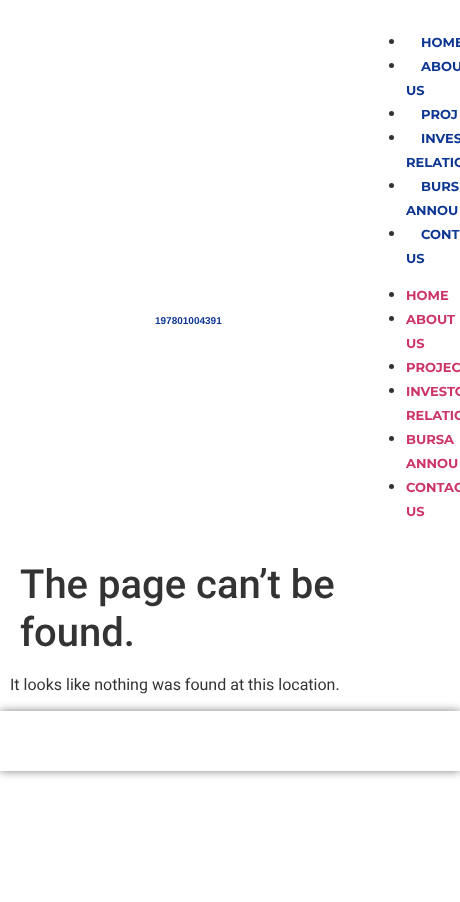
<svg xmlns="http://www.w3.org/2000/svg" width="460" height="902" viewBox="0 0 460 902">
  <defs>
    <clipPath id="clip1"><path d="M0 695H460V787H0ZM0 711H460V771H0Z" clip-rule="evenodd"/></clipPath>
  </defs>
  <rect width="100%" height="100%" fill="#fff"/>
  <circle cx="391.5" cy="41.5" r="2.5" fill="#333"/>
  <circle cx="391.5" cy="65.5" r="2.5" fill="#333"/>
  <circle cx="391.5" cy="113.5" r="2.5" fill="#333"/>
  <circle cx="391.5" cy="137.5" r="2.5" fill="#333"/>
  <circle cx="391.5" cy="185.5" r="2.5" fill="#333"/>
  <circle cx="391.5" cy="233.5" r="2.5" fill="#333"/>
  <circle cx="391.5" cy="294.5" r="2.5" fill="#333"/>
  <circle cx="391.5" cy="318.5" r="2.5" fill="#333"/>
  <circle cx="391.5" cy="366.5" r="2.5" fill="#333"/>
  <circle cx="391.5" cy="390.5" r="2.5" fill="#333"/>
  <circle cx="391.5" cy="438.5" r="2.5" fill="#333"/>
  <circle cx="391.5" cy="486.5" r="2.5" fill="#333"/>
  <g clip-path="url(#clip1)">
    <path d="M0 711h460v60H0z" fill="#00000080" filter="blur(5px)"/>
  </g>
  <text x="155" y="324" font-family="Liberation Sans" font-size="10" font-weight="bold" fill="#0d3692">197801004391</text>
  <g font-family="Montserrat" font-size="13" font-weight="bold" fill="#0d3692">
    <text x="421" y="47">HOME</text>
    <text x="421" y="71">ABOU</text>
    <text x="406" y="95">US</text>
    <text x="421" y="119">PROJ</text>
    <text x="421" y="143">INVES</text>
    <text x="406" y="167">RELATIO</text>
    <text x="421" y="191">BURS</text>
    <text x="406" y="215">ANNOU</text>
    <text x="421" y="239">CONT</text>
    <text x="406" y="263">US</text>
  </g>
  <g font-family="Montserrat" font-size="13" font-weight="bold" fill="#c36">
    <text x="406" y="300">HOME</text>
    <text x="406" y="324">ABOUT</text>
    <text x="406" y="348">US</text>
    <text x="406" y="372">PROJEC</text>
    <text x="406" y="396">INVESTO</text>
    <text x="406" y="420">RELATIO</text>
    <text x="406" y="444">BURSA</text>
    <text x="406" y="468">ANNOU</text>
    <text x="406" y="492">CONTAC</text>
    <text x="406" y="516">US</text>
  </g>
  <g font-family="Roboto" font-size="40" font-weight="500" fill="#333">
    <text x="20" y="598">The page can’t be</text>
    <text x="20" y="646">found.</text>
  </g>
  <text x="10" y="690" font-family="Roboto" font-size="16" fill="#333">It looks like nothing was found at this location.</text>
</svg>
